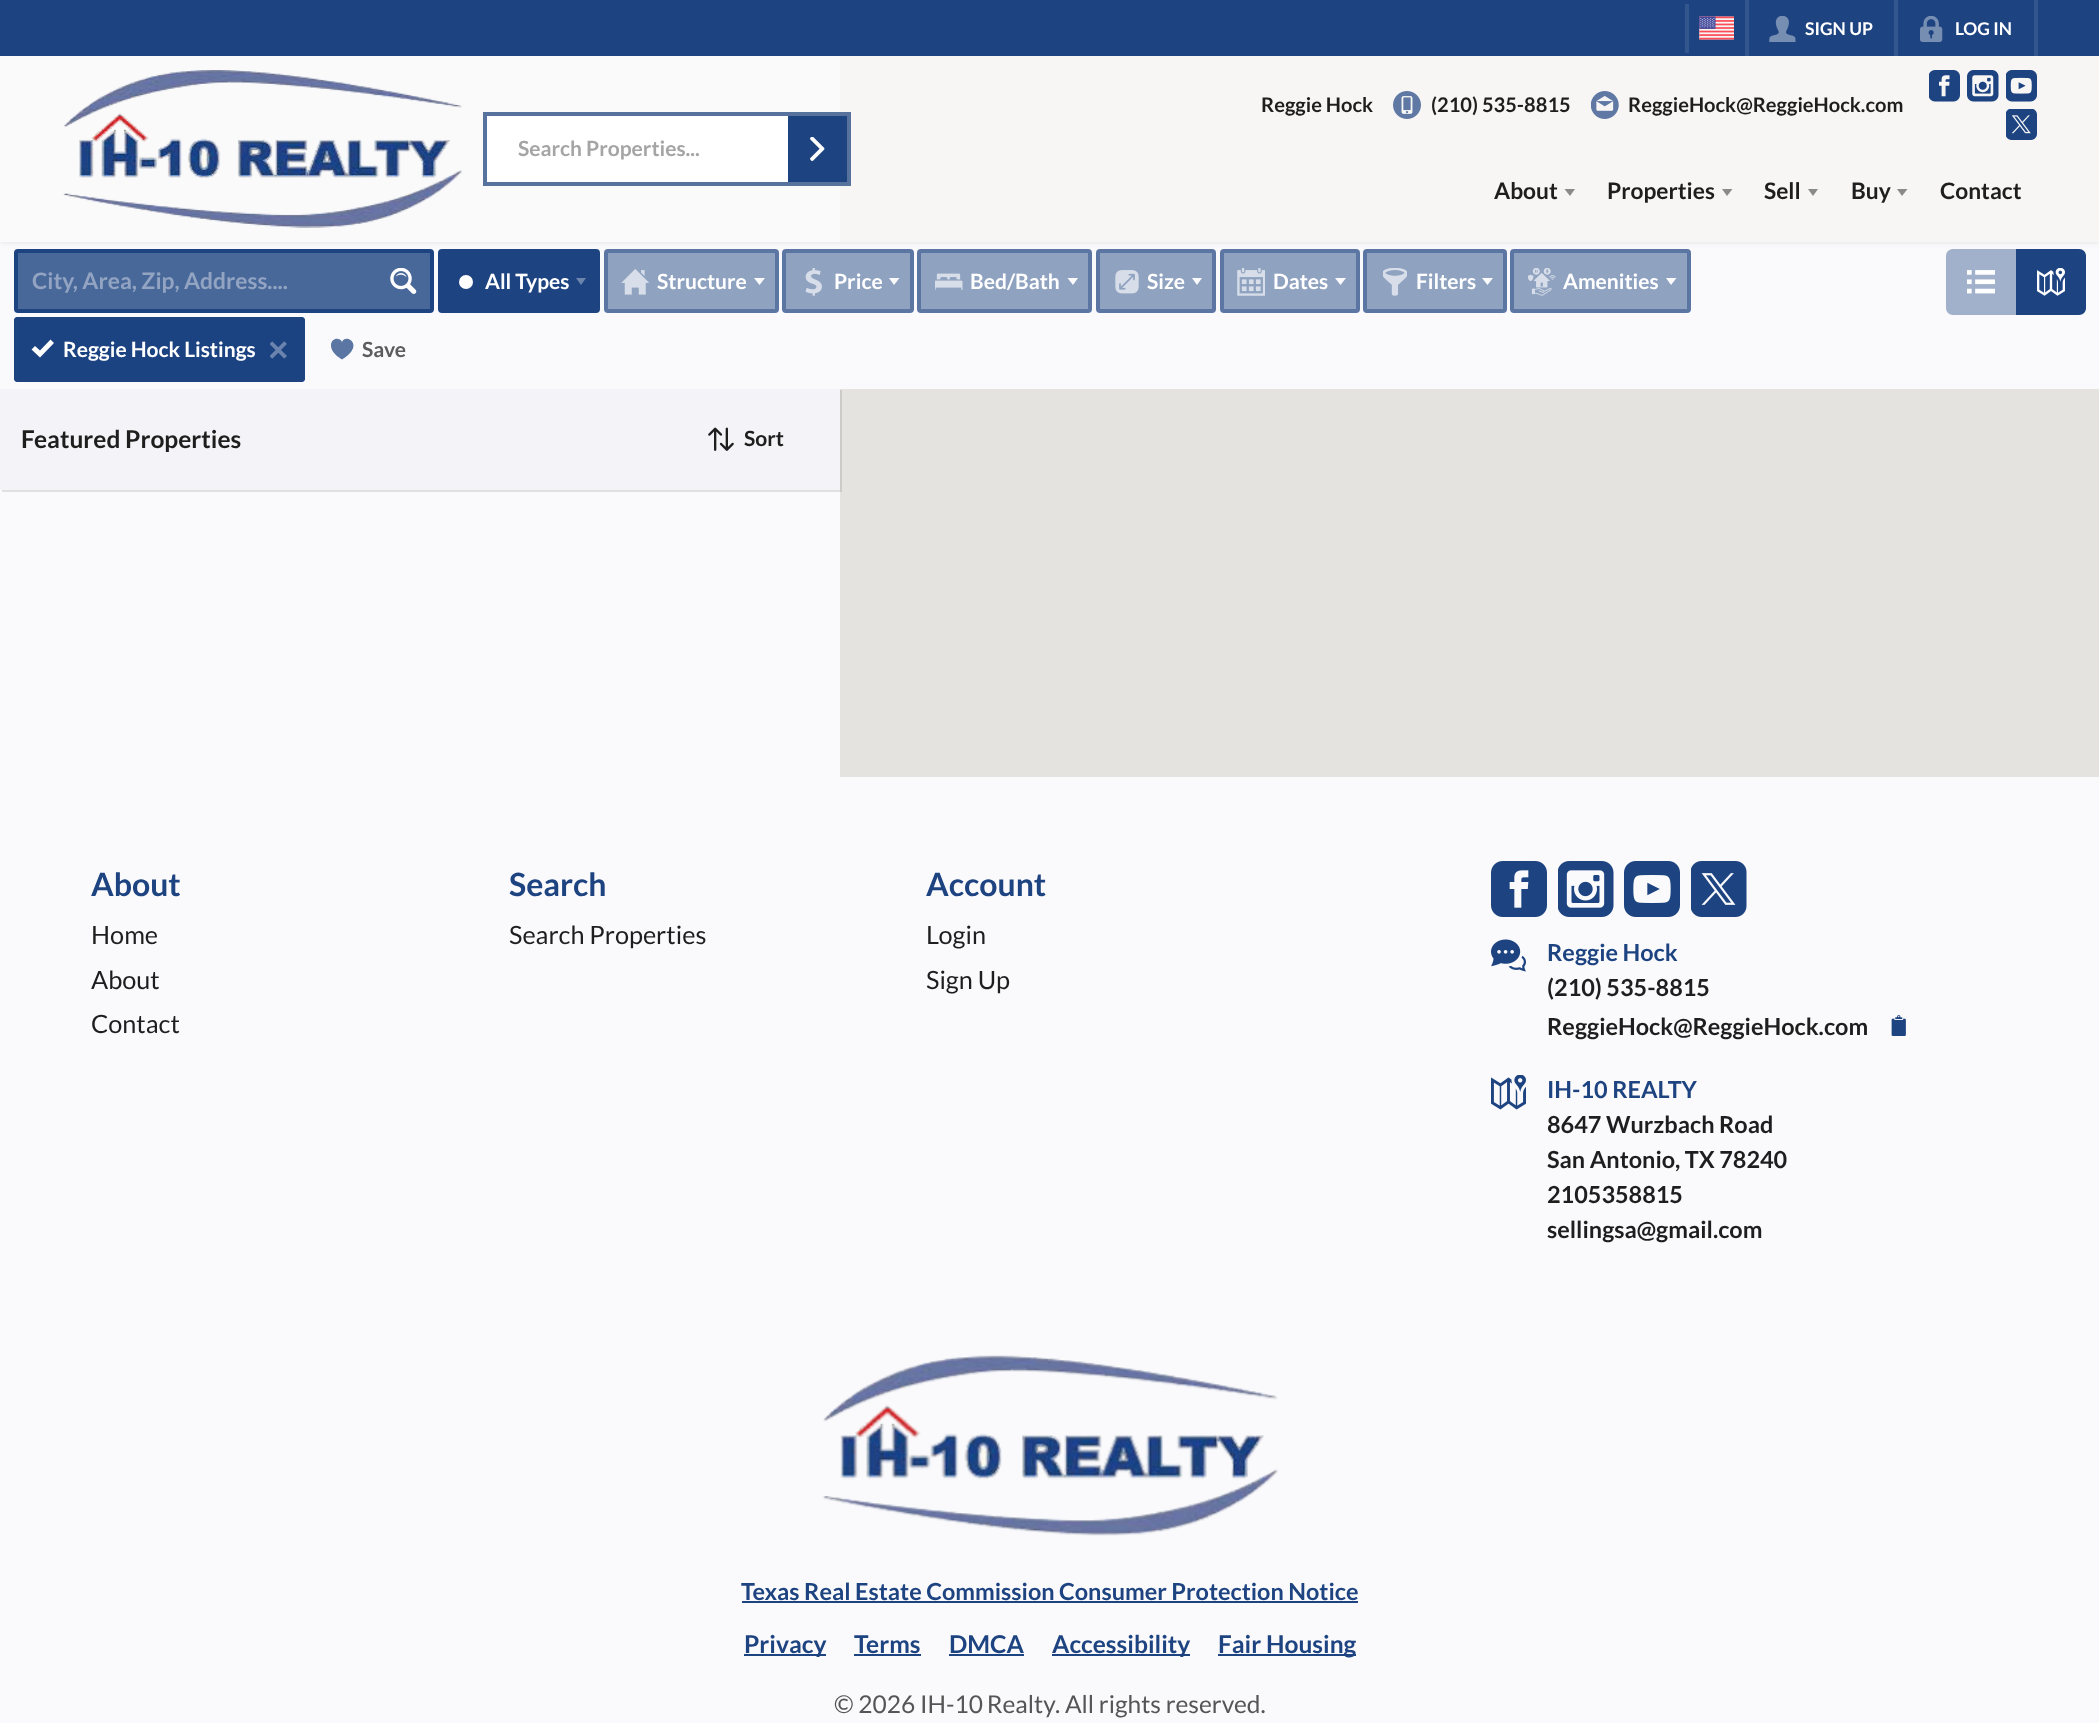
<svg xmlns="http://www.w3.org/2000/svg" width="2099" height="1723" viewBox="0 0 2099 1723">
  <defs>
    <clipPath id="clip1"><path d="M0 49H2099V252H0ZM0 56H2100V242H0Z" clip-rule="evenodd"/></clipPath>
  </defs>
  <rect width="100%" height="100%" fill="#fafafc"/>
  <path d="M840 56h1259v721H840z" fill="#e5e3df"/>
  <path d="M840 242h1259v147H840z" fill="#fafafc"/>
  <rect x="16" y="251" width="416" height="60" rx="2" fill="#49689a" stroke="#1d4381" stroke-width="4"/>
  <rect x="440" y="251" width="158" height="60" rx="2" fill="#1d4381" stroke="#1d4381" stroke-width="4"/>
  <rect x="606" y="251" width="171" height="60" rx="2" fill="#8fa2c0" stroke="#5b76a3" stroke-width="4"/>
  <rect x="784" y="251" width="128" height="60" rx="2" fill="#8fa2c0" stroke="#5b76a3" stroke-width="4"/>
  <rect x="919" y="251" width="171" height="60" rx="2" fill="#8fa2c0" stroke="#5b76a3" stroke-width="4"/>
  <rect x="1098" y="251" width="116" height="60" rx="2" fill="#8fa2c0" stroke="#5b76a3" stroke-width="4"/>
  <rect x="1222" y="251" width="136" height="60" rx="2" fill="#8fa2c0" stroke="#5b76a3" stroke-width="4"/>
  <rect x="1365" y="251" width="140" height="60" rx="2" fill="#8fa2c0" stroke="#5b76a3" stroke-width="4"/>
  <rect x="1512" y="251" width="177" height="60" rx="2" fill="#8fa2c0" stroke="#5b76a3" stroke-width="4"/>
  <path d="M1953 249H2016V315H1953C1949 315 1946 312 1946 308V256C1946 252 1949 249 1953 249Z" fill="#a2b1cb"/>
  <path d="M2016 249H2079C2083 249 2086 252 2086 256V308C2086 312 2083 315 2079 315H2016Z" fill="#1d4381"/>
  <g clip-path="url(#clip1)">
    <path d="M0 58h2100v185H0z" fill="#00000014" filter="blur(2.5px)"/>
  </g>
  <path d="M0 0h2099v56H0z" fill="#1d4381"/>
  <path d="M1685 4h4v49H1685z" fill="#34568e"/>
  <image x="1699" y="16" width="35" height="24" href="img/1.png"/>
  <path d="M2034 0h4v56H2034z" fill="#34568e"/>
  <path d="M1745 0h4v56H1745z" fill="#34568e"/>
  <image x="1769" y="16" width="27" height="26" href="img/2.png"/>
  <path d="M1894 0h4v56H1894z" fill="#34568e"/>
  <image x="1920" y="16" width="23" height="26" href="img/3.png"/>
  <path d="M0 56h2099v186H0z" fill="#fafafad1"/>
  <image x="63" y="70" width="399" height="158" href="img/4.png"/>
  <path d="M485 114h364v70H485z" fill="none" stroke="#58729e" stroke-width="4"/>
  <path d="M487 116h301v66H487z" fill="#fff"/>
  <path d="M788 116h59v66H788z" fill="#1d4381"/>
  <image x="810" y="137" width="15" height="24" href="img/5.png"/>
  <image x="1393" y="91" width="28" height="28" href="img/6.png"/>
  <image x="1591" y="91" width="28" height="28" href="img/7.png"/>
  <image x="1929" y="70" width="31" height="32" href="img/8.png"/>
  <image x="1967" y="70" width="32" height="32" href="img/9.png"/>
  <image x="2006" y="70" width="31" height="32" href="img/10.png"/>
  <image x="2006" y="109" width="31" height="31" href="img/11.png"/>
  <path d="M1564.5 189H1575L1570 196Z" fill="#8a8a89"/>
  <path d="M1722 189H1732.5L1727 196Z" fill="#8a8a89"/>
  <path d="M1808 189H1818L1813 196Z" fill="#8a8a89"/>
  <path d="M1897 189H1907.5L1902 196Z" fill="#8a8a89"/>
  <image x="390" y="268" width="27" height="26" href="img/12.png"/>
  <circle cx="466" cy="282" r="7" fill="#fff"/>
  <path d="M576 278H586L581 285Z" fill="#6c85ad"/>
  <image x="621" y="269" width="28" height="26" href="img/13.png"/>
  <path d="M754 278H765L759.5 285Z" fill="#fbfbfd"/>
  <image x="805" y="268" width="17" height="28" href="img/14.png"/>
  <path d="M889 278H899.5L894 285Z" fill="#fbfbfd"/>
  <image x="935" y="273" width="28" height="17" href="img/15.png"/>
  <path d="M1067.5 278H1078L1073 285Z" fill="#fbfbfd"/>
  <image x="1115" y="270" width="24" height="24" href="img/16.png"/>
  <path d="M1192 278H1202L1197 285Z" fill="#fbfbfd"/>
  <image x="1237" y="268" width="28" height="28" href="img/17.png"/>
  <path d="M1335 278H1346L1340.5 285Z" fill="#fbfbfd"/>
  <image x="1383" y="268" width="24" height="28" href="img/18.png"/>
  <path d="M1482 278H1493L1487.5 285Z" fill="#fbfbfd"/>
  <image x="1528" y="268" width="28" height="28" href="img/19.png"/>
  <path d="M1666 278H1676.5L1671 285Z" fill="#fbfbfd"/>
  <rect x="14" y="317" width="291" height="65" rx="4" fill="#1d4381"/>
  <rect x="16" y="319" width="287" height="61" rx="2" fill="#1d4381ab" stroke="#1d4381" stroke-width="4"/>
  <path d="M50.5 339.5L40 350.5L35 346L31.5 349.5L40 357.5L54 343Z" fill="#fff"/>
  <image x="270" y="341" width="17" height="18" href="img/20.png"/>
  <path d="M342 342C340 337 331 337.5 331 345.5C331 349 333.5 354.5 342 359.5C366 345 345.5 332.5 342 342Z" fill="#5b76a3"/>
  <image x="1967" y="270" width="28" height="24" href="img/21.png"/>
  <image x="2037" y="268" width="28" height="28" href="img/22.png"/>
  <path d="M2 490V492H842V390H840V490Z" fill="#0000001a"/>
  <path d="M0 389h840v101H0z" fill="#f4f4f8"/>
  <image x="708" y="427" width="26" height="24" href="img/23.png"/>
  <image x="1491" y="861" width="56" height="56" href="img/24.png"/>
  <image x="1558" y="861" width="56" height="56" href="img/25.png"/>
  <image x="1624" y="861" width="56" height="56" href="img/26.png"/>
  <image x="1691" y="861" width="56" height="56" href="img/27.png"/>
  <image x="1491" y="939" width="35" height="33" href="img/28.png"/>
  <image x="1891" y="1015" width="15" height="21" href="img/29.png"/>
  <image x="1491" y="1075" width="35" height="35" href="img/30.png"/>
  <image x="822" y="1355" width="456" height="181" href="img/31.png"/>
  <path d="M742 1601h616v2H742z" fill="#1d4381"/>
  <path d="M744 1654h82v2H744z" fill="#1d4381"/>
  <path d="M854 1654h67v2H854z" fill="#1d4381"/>
  <path d="M949 1654h75v2H949z" fill="#1d4381"/>
  <path d="M1052 1654h138v2H1052z" fill="#1d4381"/>
  <path d="M1218 1654h138v2H1218z" fill="#1d4381"/>
  <g font-family="Lato" font-size="17.5" font-weight="bold" fill="#fff">
    <text x="1805" y="35">SIGN UP</text>
    <text x="1955" y="35">LOG IN</text>
  </g>
  <text x="518" y="156" font-family="Lato" font-size="21" font-weight="bold" fill="#a5a5a5">Search Properties...</text>
  <g font-family="Lato" font-size="20.1" font-weight="bold" fill="#1e1e1e">
    <text x="1261" y="112">Reggie Hock</text>
    <text x="1431" y="112">(210) 535-8815</text>
    <text x="1628" y="112">ReggieHock@ReggieHock.com</text>
  </g>
  <g font-family="Lato" font-size="22.75" font-weight="bold" fill="#1e1e1e">
    <text x="1494" y="199">About</text>
    <text x="1607" y="199">Properties</text>
    <text x="1764" y="199">Sell</text>
    <text x="1851" y="199">Buy</text>
    <text x="1940" y="199">Contact</text>
  </g>
  <text x="32" y="289" font-family="Lato" font-size="22.75" font-weight="bold" fill="#92a4c2">City, Area, Zip, Address....</text>
  <g font-family="Lato" font-size="21" font-weight="bold" fill="#fff">
    <text x="485" y="289">All Types</text>
    <text x="657" y="289">Structure</text>
    <text x="834" y="289">Price</text>
    <text x="970" y="289">Bed/Bath</text>
    <text x="1147" y="289">Size</text>
    <text x="1273" y="289">Dates</text>
    <text x="1416" y="289">Filters</text>
    <text x="1563" y="289">Amenities</text>
    <text x="63" y="357">Reggie Hock Listings</text>
  </g>
  <text x="362" y="357" font-family="Lato" font-size="21" font-weight="bold" fill="#5c5c5c">Save</text>
  <text x="21" y="448" font-family="Lato" font-size="24.5" font-weight="bold" fill="#1e1e1e">Featured Properties</text>
  <text x="744" y="446" font-family="Lato" font-size="21" font-weight="bold" fill="#1e1e1e">Sort</text>
  <text x="91" y="896" font-family="Lato" font-size="32" font-weight="bold" fill="#1d4381">About</text>
  <g font-family="Lato" font-size="25.25" fill="#1e1e1e">
    <text x="91" y="944">Home</text>
    <text x="91" y="989">About</text>
    <text x="91" y="1033">Contact</text>
  </g>
  <text x="509" y="896" font-family="Lato" font-size="32" font-weight="bold" fill="#1d4381">Search</text>
  <text x="509" y="944" font-family="Lato" font-size="25.25" fill="#1e1e1e">Search Properties</text>
  <text x="926" y="896" font-family="Lato" font-size="32" font-weight="bold" fill="#1d4381">Account</text>
  <g font-family="Lato" font-size="25.25" fill="#1e1e1e">
    <text x="926" y="944">Login</text>
    <text x="926" y="989">Sign Up</text>
  </g>
  <text x="1547" y="961" font-family="Lato" font-size="23.45" font-weight="bold" fill="#1d4381">Reggie Hock</text>
  <g font-family="Lato" font-size="23.45" font-weight="bold" fill="#1e1e1e">
    <text x="1547" y="996">(210) 535-8815</text>
    <text x="1547" y="1035">ReggieHock@ReggieHock.com</text>
  </g>
  <text x="1547" y="1098" font-family="Lato" font-size="23.45" font-weight="bold" fill="#1d4381">IH-10 REALTY</text>
  <g font-family="Lato" font-size="23.45" font-weight="bold" fill="#1e1e1e">
    <text x="1547" y="1133">8647 Wurzbach Road</text>
    <text x="1547" y="1168">San Antonio, TX 78240</text>
    <text x="1547" y="1203">2105358815</text>
    <text x="1547" y="1238">sellingsa@gmail.com</text>
  </g>
  <text x="741" y="1600" font-family="Lato" font-size="23.45" font-weight="bold" fill="#1d4381">Texas Real Estate Commission Consumer Protection Notice</text>
  <g font-family="Lato" font-size="24.5" font-weight="bold" fill="#1d4381">
    <text x="744" y="1653">Privacy</text>
    <text x="854" y="1653">Terms</text>
    <text x="949" y="1653">DMCA</text>
    <text x="1052" y="1653">Accessibility</text>
    <text x="1218" y="1653">Fair Housing</text>
  </g>
  <g font-family="Lato" font-size="24.5" fill="#555556">
    <text x="834" y="1713">© 2026</text>
    <text x="920" y="1713" word-spacing="-1">IH-10 Realty</text>
    <text x="1055" y="1713">. All rights reserved.</text>
  </g>
</svg>
